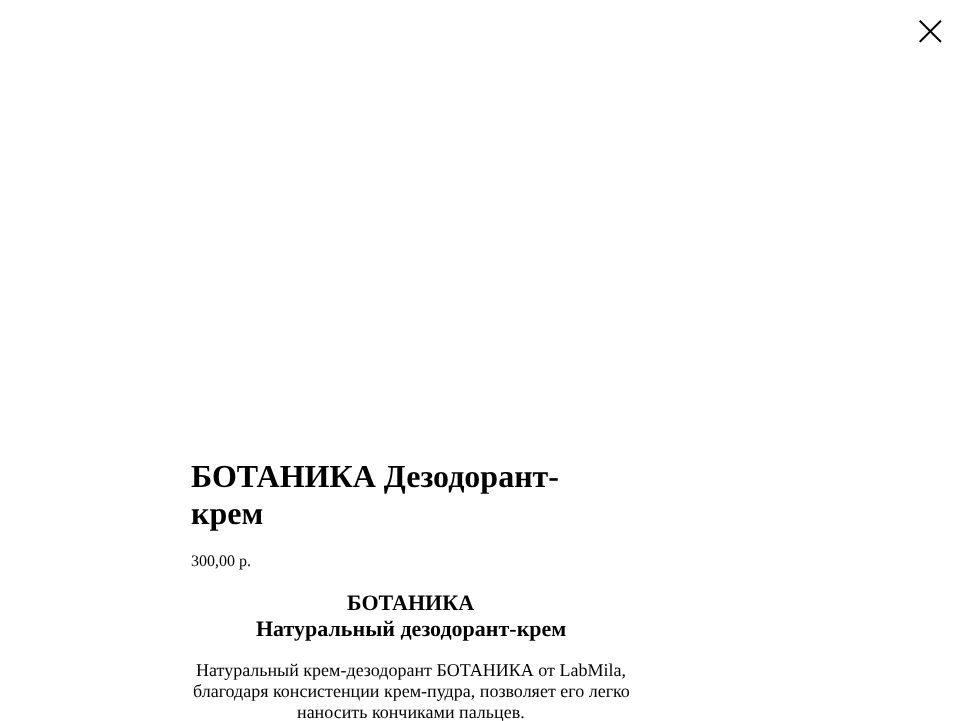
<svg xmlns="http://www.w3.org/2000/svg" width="962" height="721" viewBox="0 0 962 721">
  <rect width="100%" height="100%" fill="#fff"/>
  <image x="919" y="20" width="23" height="23" href="img/1.png"/>
  <g font-family="Liberation Serif" font-size="32" font-weight="bold" fill="#000">
    <text x="191" y="487">БОТАНИКА Дезодорант-</text>
    <text x="191" y="524">крем</text>
  </g>
  <g font-family="Liberation Serif" font-size="16" fill="#000">
    <text x="191" y="566">300,00</text>
    <text x="239" y="566">р.</text>
  </g>
  <g font-family="Liberation Serif" font-size="22" font-weight="bold" fill="#000">
    <text x="347" y="610">БОТАНИКА</text>
    <text x="256" y="636">Натуральный дезодорант-крем</text>
  </g>
  <g font-family="Liberation Serif" font-size="18" fill="#000">
    <text x="196" y="676">Натуральный крем-дезодорант БОТАНИКА от LabMila,</text>
    <text x="193" y="697">благодаря консистенции крем-пудра, позволяет его легко</text>
    <text x="297" y="718">наносить кончиками пальцев.</text>
  </g>
</svg>
